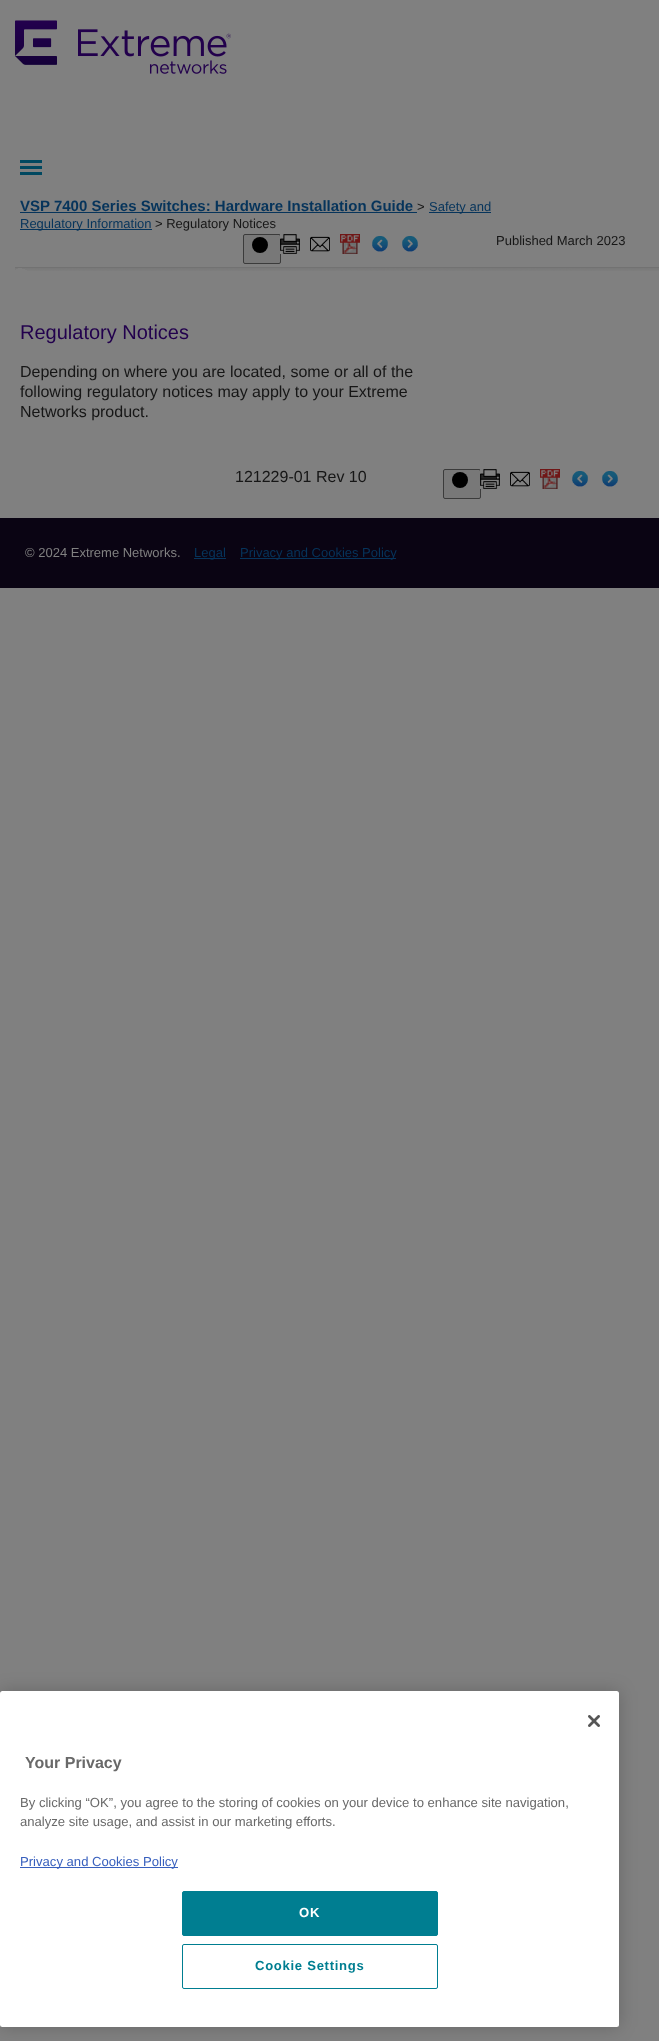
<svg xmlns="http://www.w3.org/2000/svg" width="659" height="2041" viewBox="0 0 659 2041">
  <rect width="100%" height="100%" fill="#808080"/>
  <image x="15" y="20" width="216" height="54" href="img/1.png"/>
  <path d="M20 160h22v3H20z" fill="#004860"/>
  <path d="M20 166h22v3H20z" fill="#004860"/>
  <path d="M20 172h22v3H20z" fill="#004860"/>
  <image x="15" y="267" width="644" height="4" href="img/2.png"/>
  <path d="M20 212h397v1H20z" fill="#06345b"/>
  <path d="M429 212h62v1H429z" fill="#06345b"/>
  <path d="M20 229h132v1H20z" fill="#06345b"/>
  <rect x="243.5" y="234.5" width="37" height="29" rx="1.5" fill="#787878" stroke="#3b3b3b"/>
  <circle cx="260" cy="245" r="8" fill="#000"/>
  <image x="280" y="234" width="20" height="20" href="img/3.png"/>
  <image x="310" y="236" width="20" height="16" href="img/4.png"/>
  <image x="340" y="234" width="20" height="20" href="img/5.png"/>
  <image x="372" y="236" width="16" height="16" href="img/6.png"/>
  <image x="402" y="236" width="16" height="16" href="img/7.png"/>
  <rect x="443.5" y="469.5" width="37" height="29" rx="1.5" fill="#787878" stroke="#3b3b3b"/>
  <circle cx="460" cy="480" r="8" fill="#000"/>
  <image x="480" y="469" width="20" height="20" href="img/3.png"/>
  <image x="510" y="471" width="20" height="16" href="img/8.png"/>
  <image x="540" y="469" width="20" height="20" href="img/9.png"/>
  <image x="572" y="471" width="16" height="16" href="img/10.png"/>
  <image x="602" y="471" width="16" height="16" href="img/7.png"/>
  <path d="M0 518h659v70H0z" fill="#0a0413"/>
  <path d="M194 558h32v1H194z" fill="#06345b"/>
  <path d="M240 558h156v1H240z" fill="#06345b"/>
  <rect y="1691" width="619" height="336" rx="2.5" fill="#00000033" filter="blur(9px)"/>
  <rect y="1691" width="619" height="336" rx="2.5" fill="#fff"/>
  <image x="588" y="1715" width="12" height="12" href="img/11.png"/>
  <path d="M20 1867h158v1H20z" fill="#3860be"/>
  <rect x="182.5" y="1891.5" width="255" height="44" rx="1.5" fill="#007e91" stroke="#007e91"/>
  <rect x="182.5" y="1944.5" width="255" height="44" rx="1.5" fill="none" stroke="#007e91"/>
  <text x="20" y="211" font-family="Liberation Sans" font-size="15" font-weight="bold" fill="#06345b">VSP 7400 Series Switches: Hardware Installation Guide</text>
  <text x="417" y="211" font-family="Liberation Sans" font-size="13" fill="#161616">&gt;</text>
  <g font-family="Liberation Sans" font-size="13" fill="#06345b">
    <text x="429" y="211">Safety and</text>
    <text x="20" y="228">Regulatory Information</text>
  </g>
  <g font-family="Liberation Sans" font-size="13" fill="#161616">
    <text x="155" y="228">&gt; Regulatory Notices</text>
    <text x="496" y="245">Published March 2023</text>
  </g>
  <text x="20" y="339" font-family="Liberation Sans" font-size="20" fill="#22004d">Regulatory Notices</text>
  <g font-family="Liberation Sans" font-size="16" fill="#161616">
    <text x="20" y="377">Depending on where you are located, some or all of the</text>
    <text x="20" y="397">following regulatory notices may apply to your Extreme</text>
    <text x="20" y="417">Networks product.</text>
    <text x="235" y="482">121229-01 Rev 10</text>
  </g>
  <text x="25" y="557" font-family="Liberation Sans" font-size="13" fill="#808080">© 2024 Extreme Networks.</text>
  <g font-family="Liberation Sans" font-size="13" fill="#06345b">
    <text x="194" y="557">Legal</text>
    <text x="240" y="557">Privacy and Cookies Policy</text>
  </g>
  <text x="25" y="1768" font-family="Liberation Sans" font-size="16" font-weight="bold" fill="#696969">Your Privacy</text>
  <g font-family="Liberation Sans" font-size="13.1" fill="#696969">
    <text x="20" y="1807">By clicking “OK”, you agree to the storing of cookies on your device to enhance site navigation,</text>
    <text x="20" y="1826">analyze site usage, and assist in our marketing efforts.</text>
  </g>
  <text x="20" y="1866" font-family="Liberation Sans" font-size="13.1" fill="#3860be">Privacy and Cookies Policy</text>
  <text x="299" y="1917" font-family="Liberation Sans" font-size="13.1" font-weight="bold" letter-spacing="0.7" fill="#fff">OK</text>
  <text x="255" y="1970" font-family="Liberation Sans" font-size="13.1" font-weight="bold" letter-spacing="0.7" fill="#007e91">Cookie Settings</text>
</svg>
